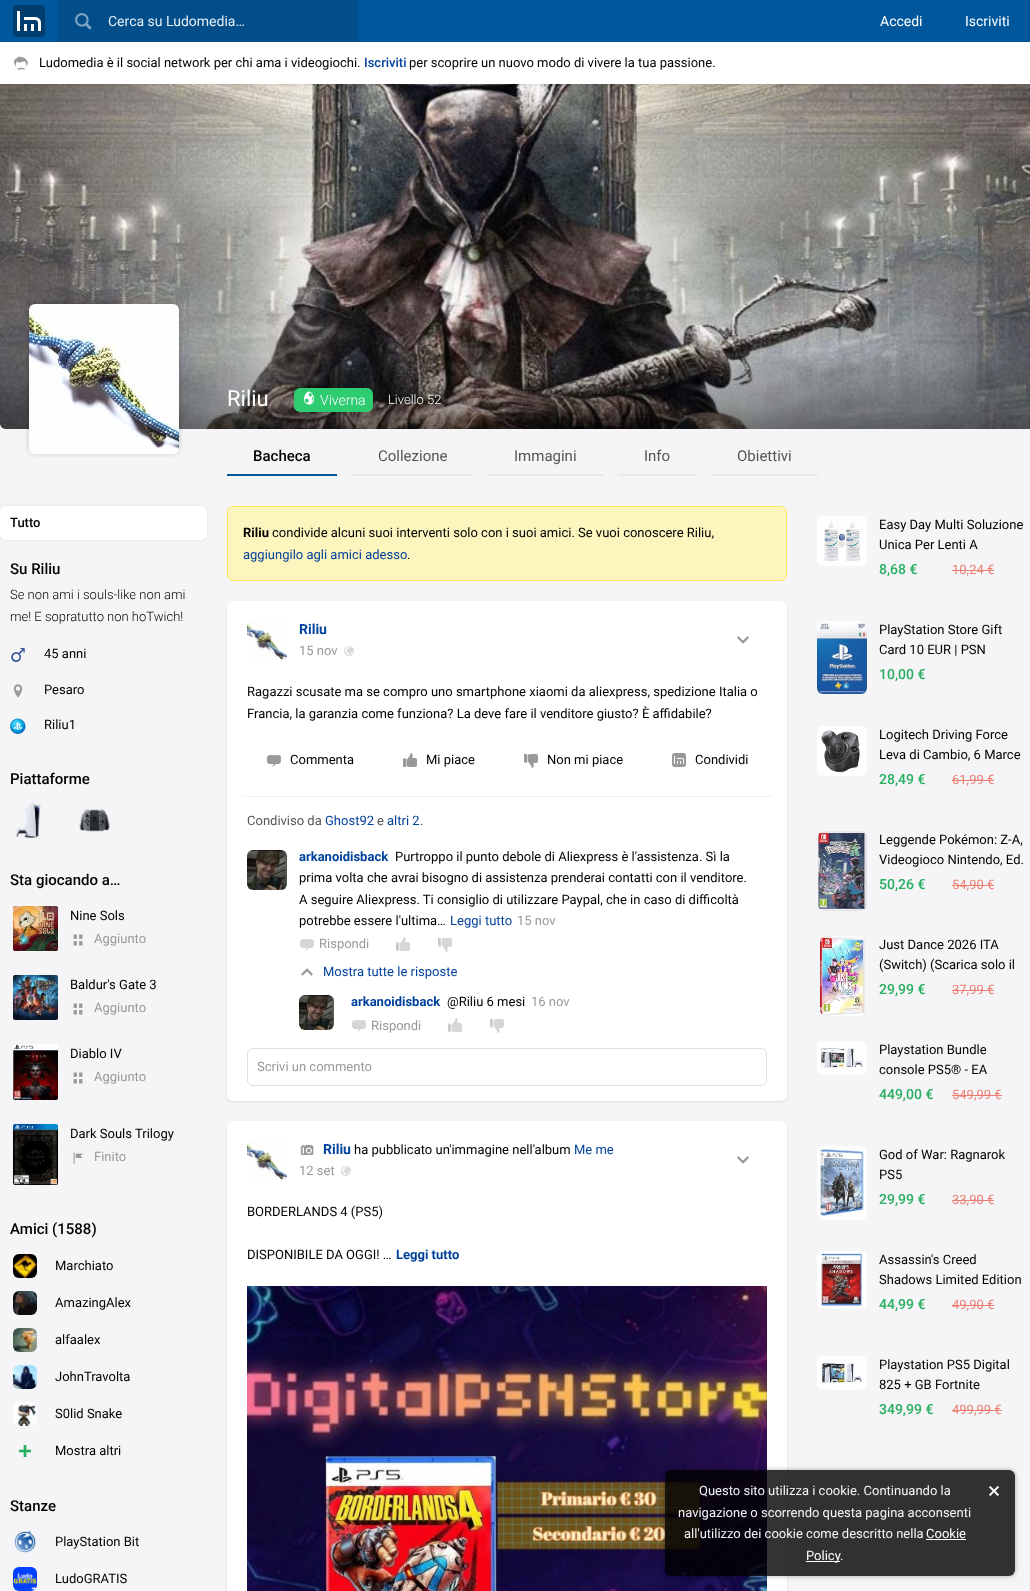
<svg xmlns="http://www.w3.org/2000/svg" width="1030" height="1591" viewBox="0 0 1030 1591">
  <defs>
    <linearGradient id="g1" gradientUnits="userSpaceOnUse" x1="518" y1="259" x2="518" y2="429"><stop offset="0" stop-color="#000" stop-opacity="0"/><stop offset="0.12" stop-color="#000" stop-opacity="0.01"/><stop offset="0.25" stop-color="#000" stop-opacity="0.01"/><stop offset="0.38" stop-color="#000" stop-opacity="0.03"/><stop offset="0.5" stop-color="#000" stop-opacity="0.06"/><stop offset="0.62" stop-color="#000" stop-opacity="0.12"/><stop offset="0.75" stop-color="#000" stop-opacity="0.25"/><stop offset="0.88" stop-color="#000" stop-opacity="0.37"/><stop offset="1" stop-color="#000" stop-opacity="0.5"/></linearGradient>
    <clipPath id="clip1"><path d="M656 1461H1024V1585H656ZM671 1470H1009C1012.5 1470 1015 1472.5 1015 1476V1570C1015 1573.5 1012.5 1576 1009 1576H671C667.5 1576 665 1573.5 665 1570V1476C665 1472.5 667.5 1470 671 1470Z" clip-rule="evenodd"/></clipPath>
  </defs>
  <rect width="100%" height="100%" fill="#f5f5f7"/>
  <path d="M0 0h1030v42H0z" fill="#01579b"/>
  <image x="13" y="5" width="32" height="32" href="img/1.png"/>
  <image x="0" y="84" width="1030" height="345" href="img/4.png"/>
  <path d="M0 43h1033v42H0z" fill="#00000017" filter="blur(1px)"/>
  <path d="M58 0h300v42H58z" fill="#014e8b"/>
  <image x="75" y="13" width="17" height="17" href="img/2.png"/>
  <path d="M0 42h1030v42H0z" fill="#fff"/>
  <image x="14" y="56" width="14" height="14" href="img/3.png"/>
  <path d="M0 259H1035V423C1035 426.5 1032.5 429 1029 429H6C2.5 429 0 426.5 0 423Z" fill="url(#g1)"/>
  <rect x="294" y="388" width="79" height="24" rx="6" fill="#2ecc71"/>
  <image x="304" y="391" width="10" height="14" href="img/5.png"/>
  <image x="25" y="299" width="158" height="158" href="img/6.png"/>
  <path d="M227 474h110v2H227z" fill="#01579b"/>
  <path d="M352 474h121v2H352z" fill="#e9e9eb"/>
  <path d="M488 474h115v2H488z" fill="#e9e9eb"/>
  <path d="M618 474h78v2H618z" fill="#e9e9eb"/>
  <path d="M711 474h107v2H711z" fill="#e9e9eb"/>
  <rect y="506" width="207" height="34" rx="6" fill="#0000001a" filter="blur(1px)"/>
  <rect y="506" width="207" height="34" rx="6" fill="#fff"/>
  <image x="11" y="648" width="14" height="14" href="img/7.png"/>
  <image x="13" y="684" width="10" height="14" href="img/8.png"/>
  <image x="10" y="718" width="16" height="16" href="img/9.png"/>
  <image x="15" y="802" width="26" height="36" href="img/10.png"/>
  <image x="79" y="809" width="31" height="23" href="img/11.png"/>
  <image x="13" y="906" width="45" height="45" href="img/12.png"/>
  <image x="73" y="934" width="10" height="12" href="img/13.png"/>
  <image x="13" y="975" width="45" height="45" href="img/14.png"/>
  <image x="73" y="1003" width="10" height="12" href="img/13.png"/>
  <image x="13" y="1044" width="45" height="56" href="img/15.png"/>
  <image x="73" y="1072" width="10" height="12" href="img/13.png"/>
  <image x="13" y="1124" width="45" height="61" href="img/16.png"/>
  <image x="73" y="1152" width="10" height="12" href="img/17.png"/>
  <image x="13" y="1254" width="24" height="24" href="img/18.png"/>
  <image x="13" y="1291" width="24" height="24" href="img/19.png"/>
  <image x="13" y="1328" width="24" height="24" href="img/20.png"/>
  <image x="13" y="1365" width="24" height="24" href="img/21.png"/>
  <image x="13" y="1402" width="24" height="24" href="img/22.png"/>
  <image x="14" y="1530" width="22" height="23" href="img/23.png"/>
  <image x="13" y="1567" width="24" height="24" href="img/24.png"/>
  <rect x="227.5" y="506.5" width="559" height="74" rx="5.5" fill="#fdf5be" stroke="#fae65b"/>
  <rect x="227" y="602" width="560" height="500" rx="6" fill="#0000001a" filter="blur(1px)"/>
  <rect x="227" y="601" width="560" height="500" rx="6" fill="#fff"/>
  <image x="247" y="621" width="40" height="39" href="img/25.png"/>
  <image x="344" y="646" width="10" height="10" href="img/26.png"/>
  <image x="737" y="636" width="12" height="8" href="img/27.png"/>
  <image x="267" y="755" width="14" height="12" href="img/28.png"/>
  <image x="403" y="753" width="14" height="14" href="img/29.png"/>
  <image x="524" y="754" width="14" height="14" href="img/30.png"/>
  <image x="672" y="753" width="14" height="14" href="img/31.png"/>
  <path d="M242 796h530v1H242z" fill="#f2f2f2"/>
  <image x="247" y="850" width="40" height="40" href="img/32.png"/>
  <image x="300" y="939" width="14" height="12" href="img/33.png"/>
  <image x="396" y="937" width="14" height="14" href="img/34.png"/>
  <image x="438" y="938" width="14" height="14" href="img/35.png"/>
  <image x="301" y="968" width="12" height="8" href="img/36.png"/>
  <image x="299" y="995" width="35" height="35" href="img/37.png"/>
  <image x="352" y="1020" width="14" height="12" href="img/33.png"/>
  <image x="448" y="1018" width="14" height="14" href="img/34.png"/>
  <image x="490" y="1019" width="14" height="14" href="img/35.png"/>
  <rect x="247.5" y="1048.5" width="519" height="37" rx="5.5" fill="none" stroke="#e0e0e0"/>
  <rect x="227" y="1122" width="560" height="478" rx="6" fill="#0000001a" filter="blur(1px)"/>
  <rect x="227" y="1121" width="560" height="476" rx="6" fill="#fff"/>
  <image x="247" y="1141" width="40" height="39" href="img/25.png"/>
  <image x="300" y="1145" width="14" height="10" href="img/38.png"/>
  <image x="341" y="1166" width="10" height="10" href="img/26.png"/>
  <image x="737" y="1156" width="12" height="8" href="img/27.png"/>
  <image x="247" y="1286" width="520" height="305" href="img/39.png"/>
  <image x="817" y="516" width="50" height="50" href="img/40.png"/>
  <path d="M952 570h42v1H952z" fill="#eb7f74"/>
  <image x="817" y="621" width="50" height="73" href="img/41.png"/>
  <image x="817" y="726" width="50" height="50" href="img/42.png"/>
  <path d="M952 780h42v1H952z" fill="#eb7f74"/>
  <image x="818" y="831" width="49" height="80" href="img/43.png"/>
  <path d="M952 885h42v1H952z" fill="#eb7f74"/>
  <image x="820" y="936" width="45" height="80" href="img/44.png"/>
  <path d="M952 990h42v1H952z" fill="#eb7f74"/>
  <image x="817" y="1041" width="50" height="34" href="img/45.png"/>
  <path d="M952 1095h50v1H952z" fill="#eb7f74"/>
  <image x="817" y="1146" width="50" height="74" href="img/46.png"/>
  <path d="M952 1200h42v1H952z" fill="#eb7f74"/>
  <image x="817" y="1251" width="50" height="58" href="img/47.png"/>
  <path d="M952 1305h42v1H952z" fill="#eb7f74"/>
  <image x="817" y="1356" width="50" height="34" href="img/48.png"/>
  <path d="M952 1410h50v1H952z" fill="#eb7f74"/>
  <g clip-path="url(#clip1)">
    <rect x="665" y="1470" width="350" height="106" rx="6" fill="#0000004d" filter="blur(2.5px)"/>
  </g>
  <rect x="665" y="1470" width="350" height="106" rx="6" fill="#000000cc"/>
  <path d="M926 1539h40v1H926z" fill="#fff"/>
  <path d="M806 1561h34v1H806z" fill="#fff"/>
  <image x="989" y="1486" width="10" height="10" href="img/49.png"/>
  <text x="108" y="26" font-family="Roboto" font-size="14" fill="#e6edf3">Cerca su Ludomedia…</text>
  <g font-family="Roboto" font-size="14" fill="#fff">
    <text x="880" y="26">Accedi</text>
    <text x="965" y="26">Iscriviti</text>
  </g>
  <text x="39" y="67" font-family="Roboto" font-size="13" fill="#000">Ludomedia è il social network per chi ama i videogiochi.</text>
  <text x="364" y="67" font-family="Roboto" font-size="13" font-weight="500" fill="#00419b">Iscriviti</text>
  <text x="409" y="67" font-family="Roboto" font-size="13" fill="#000">per scoprire un nuovo modo di vivere la tua passione.</text>
  <text x="227" y="406" font-family="Roboto" font-size="22" fill="#fff">Riliu</text>
  <text x="320" y="405" font-family="Roboto" font-size="14" font-weight="300" fill="#fff">Viverna</text>
  <text x="388" y="404" font-family="Roboto" font-size="13" font-weight="300" fill="#fff">Livello 52</text>
  <text x="253" y="461" font-family="Roboto" font-size="15" font-weight="500" fill="#000">Bacheca</text>
  <g font-family="Roboto" font-size="15" fill="#555557">
    <text x="378" y="461">Collezione</text>
    <text x="514" y="461">Immagini</text>
    <text x="644" y="461">Info</text>
    <text x="737" y="461">Obiettivi</text>
  </g>
  <text x="10" y="527" font-family="Roboto" font-size="13" font-weight="500" fill="#000">Tutto</text>
  <text x="10" y="574" font-family="Roboto" font-size="15" font-weight="500" fill="#000">Su Riliu</text>
  <g font-family="Roboto" font-size="13" font-weight="300" fill="#000">
    <text x="10" y="599">Se non ami i souls-like non ami</text>
    <text x="10" y="621">me! E sopratutto non hoTwich!</text>
  </g>
  <g font-family="Roboto" font-size="13" fill="#000">
    <text x="44" y="658">45 anni</text>
    <text x="44" y="694">Pesaro</text>
    <text x="44" y="729">Riliu1</text>
  </g>
  <g font-family="Roboto" font-size="15" font-weight="500" fill="#000">
    <text x="10" y="784">Piattaforme</text>
    <text x="10" y="885">Sta giocando a…</text>
  </g>
  <text x="70" y="920" font-family="Roboto" font-size="13" fill="#000">Nine Sols</text>
  <text x="94" y="943" font-family="Roboto" font-size="13" fill="#99999b">Aggiunto</text>
  <text x="70" y="989" font-family="Roboto" font-size="13" fill="#000">Baldur's Gate 3</text>
  <text x="94" y="1012" font-family="Roboto" font-size="13" fill="#99999b">Aggiunto</text>
  <text x="70" y="1058" font-family="Roboto" font-size="13" fill="#000">Diablo IV</text>
  <text x="94" y="1081" font-family="Roboto" font-size="13" fill="#99999b">Aggiunto</text>
  <text x="70" y="1138" font-family="Roboto" font-size="13" fill="#000">Dark Souls Trilogy</text>
  <text x="94" y="1161" font-family="Roboto" font-size="13" fill="#99999b">Finito</text>
  <text x="10" y="1234" font-family="Roboto" font-size="15" font-weight="500" fill="#000">Amici (1588)</text>
  <g font-family="Roboto" font-size="13" fill="#000">
    <text x="55" y="1270">Marchiato</text>
    <text x="55" y="1307">AmazingAlex</text>
    <text x="55" y="1344">alfaalex</text>
    <text x="55" y="1381">JohnTravolta</text>
    <text x="55" y="1418">S0lid Snake</text>
  </g>
  <text x="18" y="1459" font-family="Liberation Sans" font-size="24" font-weight="bold" fill="#27ae60">+</text>
  <text x="55" y="1455" font-family="Roboto" font-size="13" fill="#000">Mostra altri</text>
  <text x="10" y="1511" font-family="Roboto" font-size="15" font-weight="500" fill="#000">Stanze</text>
  <g font-family="Roboto" font-size="13" fill="#000">
    <text x="55" y="1546">PlayStation Bit</text>
    <text x="55" y="1583">LudoGRATIS</text>
  </g>
  <text x="243" y="537" font-family="Roboto" font-size="13" font-weight="bold" fill="#000">Riliu</text>
  <text x="272" y="537" font-family="Roboto" font-size="13" fill="#000">condivide alcuni suoi interventi solo con i suoi amici. Se vuoi conoscere Riliu,</text>
  <text x="243" y="559" font-family="Roboto" font-size="13" fill="#00419b">aggiungilo agli amici adesso</text>
  <text x="407" y="559" font-family="Roboto" font-size="13" fill="#000">.</text>
  <text x="299" y="634" font-family="Roboto" font-size="14" font-weight="bold" fill="#00419b">Riliu</text>
  <text x="299" y="655" font-family="Roboto" font-size="13" fill="#99999b">15 nov</text>
  <g font-family="Roboto" font-size="13" fill="#000">
    <text x="247" y="696">Ragazzi scusate ma se compro uno smartphone xiaomi da aliexpress, spedizione Italia o</text>
    <text x="247" y="718">Francia, la garanzia come funziona? La deve fare il venditore giusto? È affidabile?</text>
    <text x="290" y="764">Commenta</text>
    <text x="426" y="764">Mi piace</text>
    <text x="547" y="764">Non mi piace</text>
    <text x="695" y="764">Condividi</text>
  </g>
  <text x="247" y="825" font-family="Roboto" font-size="13" fill="#555557">Condiviso da</text>
  <text x="325" y="825" font-family="Roboto" font-size="13" fill="#00419b">Ghost92</text>
  <text x="377" y="825" font-family="Roboto" font-size="13" fill="#555557">e</text>
  <text x="387" y="825" font-family="Roboto" font-size="13" fill="#00419b">altri 2</text>
  <text x="420" y="825" font-family="Roboto" font-size="13" fill="#555557">.</text>
  <text x="299" y="861" font-family="Roboto" font-size="13" font-weight="bold" fill="#00419b">arkanoidisback</text>
  <g font-family="Roboto" font-size="13" fill="#000">
    <text x="395" y="861">Purtroppo il punto debole di Aliexpress è l'assistenza. Sì la</text>
    <text x="299" y="882">prima volta che avrai bisogno di assistenza prenderai contatti con il venditore.</text>
    <text x="299" y="904">A seguire Aliexpress. Ti consiglio di utilizzare Paypal, che in caso di difficoltà</text>
    <text x="299" y="925">potrebbe essere l'ultima…</text>
  </g>
  <text x="450" y="925" font-family="Roboto" font-size="13" fill="#00419b">Leggi tutto</text>
  <g font-family="Roboto" font-size="13" fill="#99999b">
    <text x="517" y="925">15 nov</text>
    <text x="319" y="948">Rispondi</text>
  </g>
  <text x="323" y="976" font-family="Roboto" font-size="13" fill="#00419b">Mostra tutte le risposte</text>
  <text x="351" y="1006" font-family="Roboto" font-size="13" font-weight="bold" fill="#00419b">arkanoidisback</text>
  <text x="447" y="1006" font-family="Roboto" font-size="13" fill="#000">@Riliu 6 mesi</text>
  <g font-family="Roboto" font-size="13" fill="#99999b">
    <text x="531" y="1006">16 nov</text>
    <text x="371" y="1030">Rispondi</text>
    <text x="257" y="1071">Scrivi un commento</text>
  </g>
  <text x="323" y="1154" font-family="Roboto" font-size="14" font-weight="bold" fill="#00419b">Riliu</text>
  <text x="354" y="1154" font-family="Roboto" font-size="13" fill="#000">ha pubblicato un'immagine nell'album</text>
  <text x="574" y="1154" font-family="Roboto" font-size="13" fill="#00419b">Me me</text>
  <text x="299" y="1175" font-family="Roboto" font-size="13" fill="#99999b">12 set</text>
  <g font-family="Roboto" font-size="13" fill="#000">
    <text x="247" y="1216">BORDERLANDS 4 (PS5)</text>
    <text x="247" y="1259">DISPONIBILE DA OGGI! …</text>
  </g>
  <text x="396" y="1259" font-family="Roboto" font-size="13" font-weight="bold" fill="#00419b">Leggi tutto</text>
  <g font-family="Roboto" font-size="13" fill="#000">
    <text x="879" y="529">Easy Day Multi Soluzione</text>
    <text x="879" y="549">Unica Per Lenti A</text>
  </g>
  <text x="879" y="574" font-family="Roboto" font-size="14" font-weight="500" fill="#27ae60">8,68 €</text>
  <text x="952" y="574" font-family="Roboto" font-size="13" fill="#eb7f74">10,24 €</text>
  <g font-family="Roboto" font-size="13" fill="#000">
    <text x="879" y="634">PlayStation Store Gift</text>
    <text x="879" y="654">Card 10 EUR | PSN</text>
  </g>
  <text x="879" y="679" font-family="Roboto" font-size="14" font-weight="500" fill="#27ae60">10,00 €</text>
  <g font-family="Roboto" font-size="13" fill="#000">
    <text x="879" y="739">Logitech Driving Force</text>
    <text x="879" y="759">Leva di Cambio, 6 Marce</text>
  </g>
  <text x="879" y="784" font-family="Roboto" font-size="14" font-weight="500" fill="#27ae60">28,49 €</text>
  <text x="952" y="784" font-family="Roboto" font-size="13" fill="#eb7f74">61,99 €</text>
  <g font-family="Roboto" font-size="13" fill="#000">
    <text x="879" y="844">Leggende Pokémon: Z-A,</text>
    <text x="879" y="864">Videogioco Nintendo, Ed.</text>
  </g>
  <text x="879" y="889" font-family="Roboto" font-size="14" font-weight="500" fill="#27ae60">50,26 €</text>
  <text x="952" y="889" font-family="Roboto" font-size="13" fill="#eb7f74">54,90 €</text>
  <g font-family="Roboto" font-size="13" fill="#000">
    <text x="879" y="949">Just Dance 2026 ITA</text>
    <text x="879" y="969">(Switch) (Scarica solo il</text>
  </g>
  <text x="879" y="994" font-family="Roboto" font-size="14" font-weight="500" fill="#27ae60">29,99 €</text>
  <text x="952" y="994" font-family="Roboto" font-size="13" fill="#eb7f74">37,99 €</text>
  <g font-family="Roboto" font-size="13" fill="#000">
    <text x="879" y="1054">Playstation Bundle</text>
    <text x="879" y="1074">console PS5® - EA</text>
  </g>
  <text x="879" y="1099" font-family="Roboto" font-size="14" font-weight="500" fill="#27ae60">449,00 €</text>
  <text x="952" y="1099" font-family="Roboto" font-size="13" fill="#eb7f74">549,99 €</text>
  <g font-family="Roboto" font-size="13" fill="#000">
    <text x="879" y="1159">God of War: Ragnarok</text>
    <text x="879" y="1179">PS5</text>
  </g>
  <text x="879" y="1204" font-family="Roboto" font-size="14" font-weight="500" fill="#27ae60">29,99 €</text>
  <text x="952" y="1204" font-family="Roboto" font-size="13" fill="#eb7f74">33,90 €</text>
  <g font-family="Roboto" font-size="13" fill="#000">
    <text x="879" y="1264">Assassin's Creed</text>
    <text x="879" y="1284">Shadows Limited Edition</text>
  </g>
  <text x="879" y="1309" font-family="Roboto" font-size="14" font-weight="500" fill="#27ae60">44,99 €</text>
  <text x="952" y="1309" font-family="Roboto" font-size="13" fill="#eb7f74">49,90 €</text>
  <g font-family="Roboto" font-size="13" fill="#000">
    <text x="879" y="1369">Playstation PS5 Digital</text>
    <text x="879" y="1389">825 + GB Fortnite</text>
  </g>
  <text x="879" y="1414" font-family="Roboto" font-size="14" font-weight="500" fill="#27ae60">349,99 €</text>
  <text x="952" y="1414" font-family="Roboto" font-size="13" fill="#eb7f74">499,99 €</text>
  <g font-family="Roboto" font-size="13" fill="#f5f5f7">
    <text x="699" y="1495">Questo sito utilizza i cookie. Continuando la</text>
    <text x="678" y="1517">navigazione o scorrendo questa pagina acconsenti</text>
    <text x="684" y="1538">all'utilizzo dei cookie come descritto nella</text>
  </g>
  <g font-family="Roboto" font-size="13" fill="#fff">
    <text x="926" y="1538">Cookie</text>
    <text x="806" y="1560">Policy</text>
  </g>
  <text x="840" y="1560" font-family="Roboto" font-size="13" fill="#f5f5f7">.</text>
</svg>
